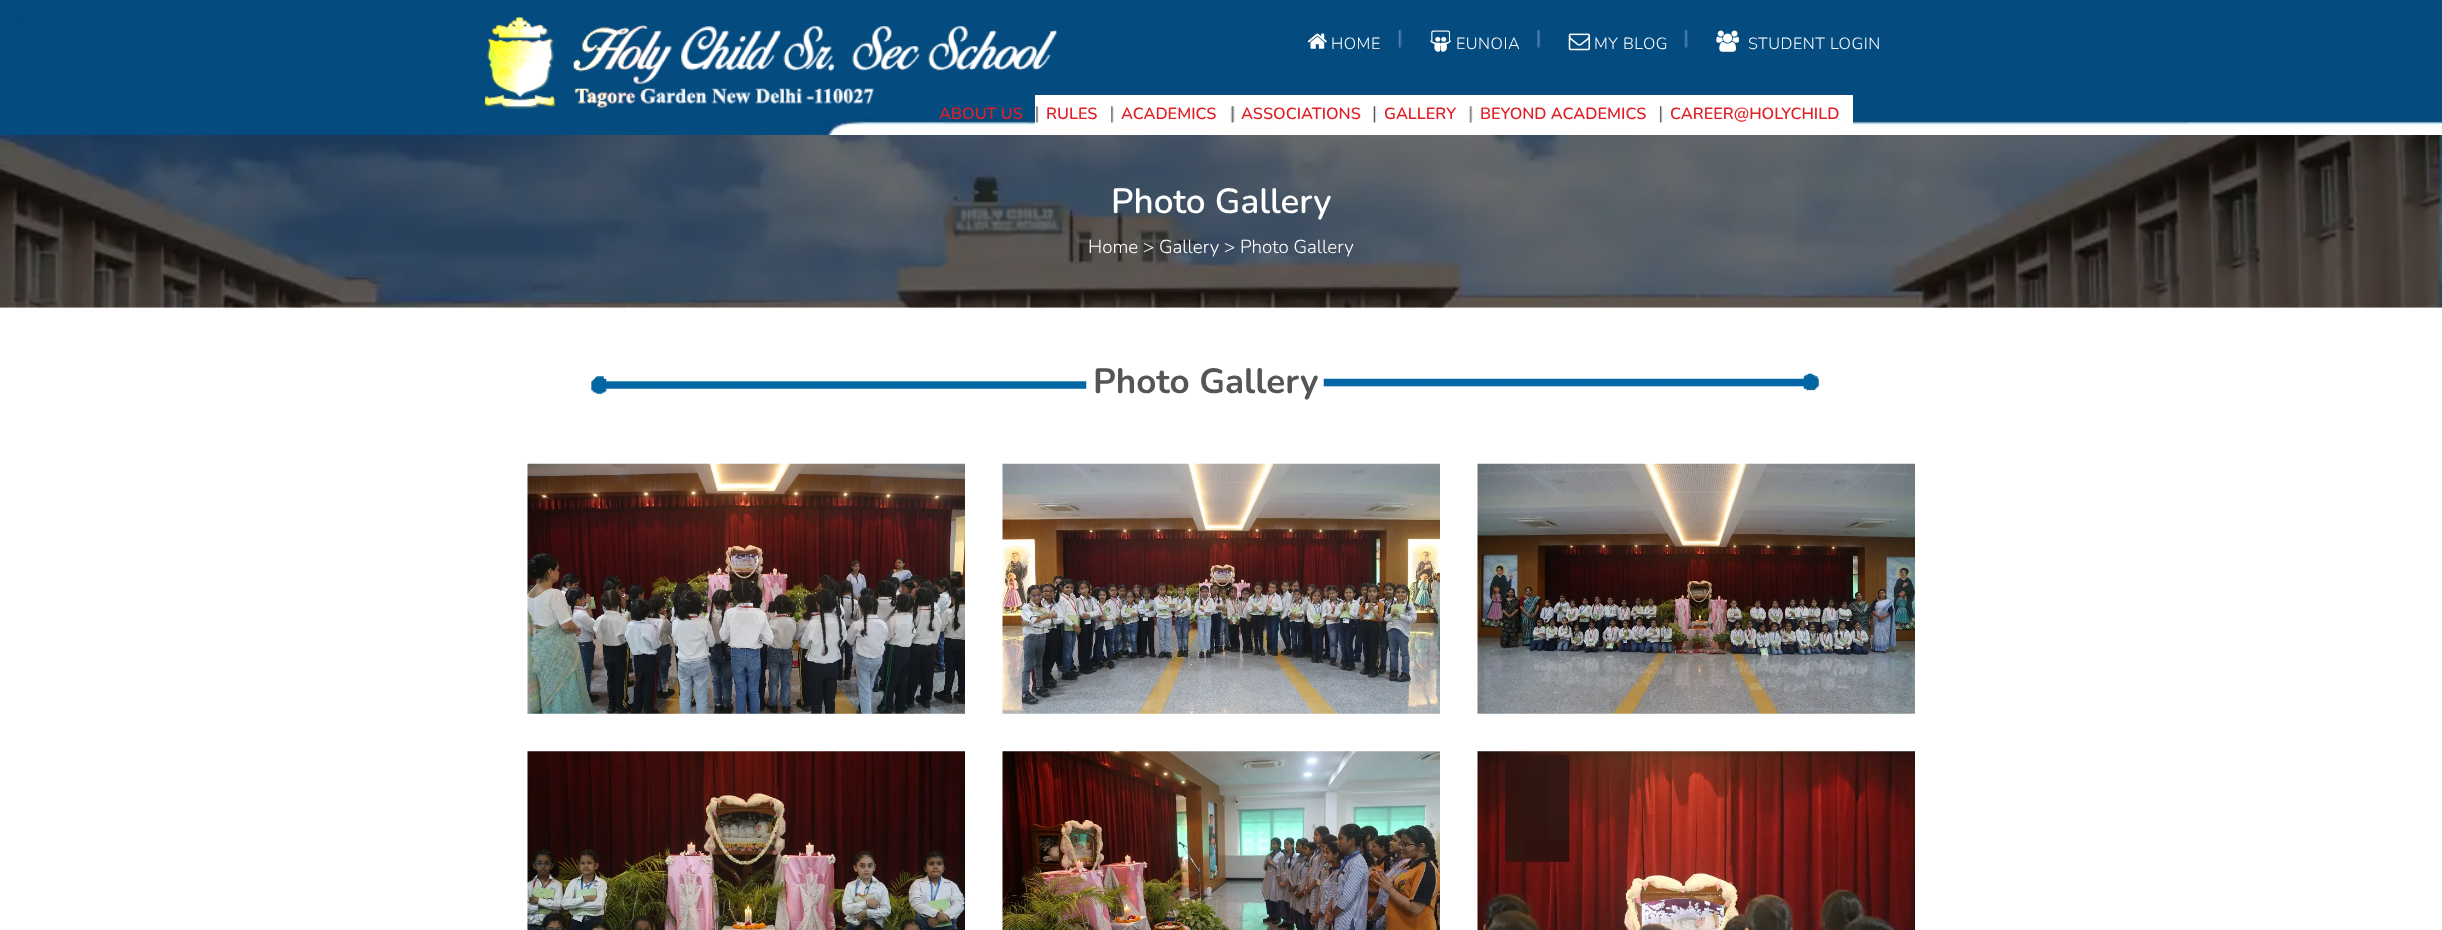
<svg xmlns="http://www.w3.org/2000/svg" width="2442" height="930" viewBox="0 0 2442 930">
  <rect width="100%" height="100%" fill="#fff"/>
  <image x="0" y="0" width="2442" height="135" href="img/1.png"/>
  <image x="484" y="17" width="573" height="92" href="img/2.png"/>
  <image x="1307" y="33" width="20" height="16" href="img/3.png"/>
  <image x="1398" y="30" width="4" height="18" href="img/4.png"/>
  <image x="1430" y="30" width="21" height="22" href="img/5.png"/>
  <image x="1536" y="30" width="5" height="18" href="img/6.png"/>
  <image x="1568" y="33" width="22" height="18" href="img/7.png"/>
  <image x="1684" y="30" width="4" height="18" href="img/8.png"/>
  <image x="1716" y="30" width="23" height="22" href="img/9.png"/>
  <path d="M1035 95h434v32H1035z" fill="#fff"/>
  <image x="1036" y="106" width="3" height="17" href="img/10.png"/>
  <image x="1111" y="106" width="3" height="17" href="img/11.png"/>
  <image x="1230" y="106" width="6" height="17" href="img/12.png"/>
  <image x="1373" y="106" width="4" height="17" href="img/13.png"/>
  <path d="M1469 95h384v35H1469z" fill="#fff"/>
  <image x="1469" y="106" width="4" height="17" href="img/14.png"/>
  <image x="1659" y="106" width="4" height="17" href="img/15.png"/>
  <image x="0" y="135" width="2442" height="173" href="img/16.png"/>
  <image x="591" y="376" width="496" height="18" href="img/17.png"/>
  <image x="1323" y="373" width="496" height="18" href="img/18.png"/>
  <image x="527" y="463" width="438" height="251" href="img/19.png"/>
  <image x="1002" y="463" width="438" height="251" href="img/20.png"/>
  <image x="1477" y="463" width="438" height="251" href="img/21.png"/>
  <image x="527" y="751" width="438" height="179" href="img/22.png"/>
  <image x="1002" y="751" width="438" height="179" href="img/23.png"/>
  <image x="1477" y="751" width="438" height="179" href="img/24.png"/>
  <g font-family="Nunito" font-size="16.25" font-weight="300" letter-spacing="0.5" fill="#fff">
    <text x="1331" y="49">HOME</text>
    <text x="1456" y="49">EUNOIA</text>
    <text x="1594" y="49">MY BLOG</text>
    <text x="1748" y="49">STUDENT LOGIN</text>
  </g>
  <g font-family="Nunito" font-size="16.25" font-weight="600" fill="#e02026">
    <text x="939" y="119">ABOUT US</text>
    <text x="1046" y="119">RULES</text>
    <text x="1121" y="119">ACADEMICS</text>
    <text x="1241" y="119">ASSOCIATIONS</text>
    <text x="1384" y="119">GALLERY</text>
    <text x="1480" y="119">BEYOND ACADEMICS</text>
    <text x="1670" y="119">CAREER@HOLYCHILD</text>
  </g>
  <text x="1111" y="213" font-family="Nunito" font-size="35" font-weight="600" fill="#fff">Photo Gallery</text>
  <text x="1088" y="253" font-family="Nunito" font-size="18.75" font-weight="300" fill="#fff">Home &gt; Gallery &gt; Photo Gallery</text>
  <text x="1093" y="393" font-family="Nunito" font-size="35" font-weight="bold" fill="#565454">Photo Gallery</text>
</svg>
